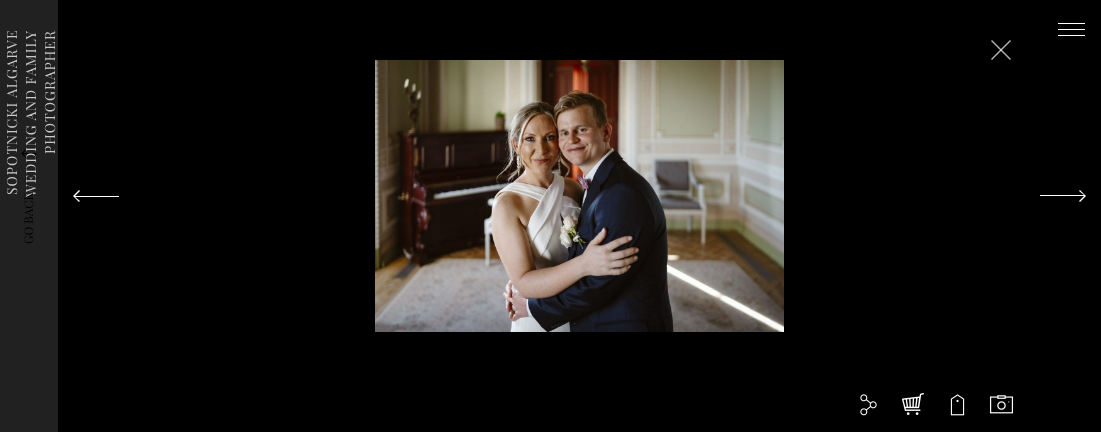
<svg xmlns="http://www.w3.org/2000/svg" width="1101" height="432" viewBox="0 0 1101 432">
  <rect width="100%" height="100%" fill="#000"/>
  <path d="M0 0h58v432H0z" fill="#212121"/>
  <image x="21" y="148" width="16" height="12" href="img/1.png"/>
  <path d="M992 40L1011 59L1010 60L991 41Z" fill="#b3b3b3"/>
  <path d="M991 59L1010 40L1011 41L992 60Z" fill="#ffffffb3"/>
  <path d="M79 202L80 201L75 197H119V196H75L80 191L79 190L73 196Z" fill="#fff"/>
  <image x="375" y="60" width="409" height="272" href="img/2.png"/>
  <path d="M1080 190L1079 191L1084 195H1040V196H1084L1079 201L1080 202L1086 196Z" fill="#fff"/>
  <image x="860" y="394" width="17" height="22" href="img/3.png"/>
  <image x="902" y="393" width="22" height="22" href="img/4.png"/>
  <image x="950" y="394" width="15" height="22" href="img/5.png"/>
  <image x="989" y="395" width="25" height="19" href="img/6.png"/>
  <path d="M1058 29h27v1H1058z" fill="#fff"/>
  <path d="M1058 23h27v1H1058z" fill="#fff"/>
  <path d="M1058 35h27v1H1058z" fill="#fff"/>
  <g font-family="Playfair Display" font-size="14" letter-spacing="1" fill="#c8c8c8">
    <text x="17" y="195" transform="rotate(-90 17 195)">SOPOTNICKI ALGARVE</text>
    <text x="36" y="197" transform="rotate(-90 36 197)">WEDDING AND FAMILY</text>
    <text x="55" y="154" transform="rotate(-90 55 154)">PHOTOGRAPHER</text>
  </g>
  <text x="33" y="244" transform="rotate(-90 33 244)" font-family="Playfair Display" font-size="12" fill="#000">GO BACK</text>
</svg>
